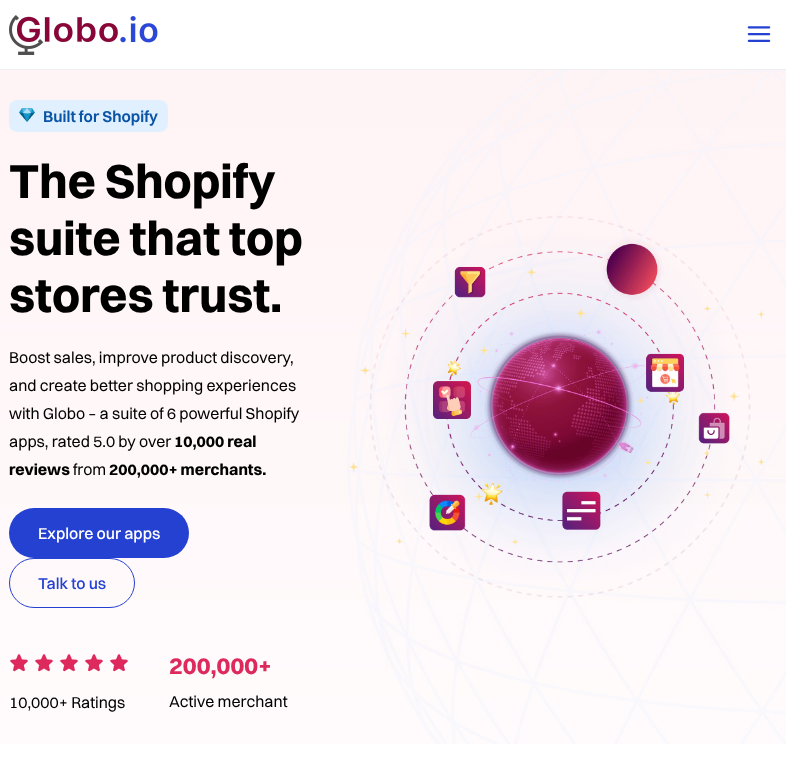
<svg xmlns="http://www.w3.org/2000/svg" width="786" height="782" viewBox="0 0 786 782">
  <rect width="100%" height="100%" fill="#fff"/>
  <path d="M0 69h786v1H0z" fill="#edeff2"/>
  <image x="9" y="15" width="149" height="40" href="img/1.png"/>
  <image x="747" y="26" width="24" height="16" href="img/2.png"/>
  <image x="0" y="70" width="786" height="674" href="img/3.png"/>
  <rect x="9" y="100" width="159" height="32" rx="8" fill="#e1f0ff"/>
  <image x="19" y="108" width="16" height="14" href="img/4.png"/>
  <rect x="9" y="508" width="180" height="50" rx="25" fill="#2441d2"/>
  <rect x="9.5" y="558.5" width="125" height="49" rx="24.5" fill="none" stroke="#2441d2"/>
  <image x="10" y="654" width="118" height="18" href="img/5.png"/>
  <image x="349" y="216" width="416" height="382" href="img/6.png"/>
  <text x="43" y="122" font-family="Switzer" font-size="16" font-weight="600" fill="#0954a5">Built for Shopify</text>
  <g font-family="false" font-size="48" font-weight="bold" fill="#000">
    <text x="9" y="198">The Shopify</text>
    <text x="9" y="255">suite that top</text>
    <text x="9" y="312">stores trust.</text>
  </g>
  <g font-family="false" font-size="16" fill="#000">
    <text x="9" y="363">Boost sales, improve product discovery,</text>
    <text x="9" y="391">and create better shopping experiences</text>
    <text x="9" y="419">with Globo – a suite of 6 powerful Shopify</text>
    <text x="9" y="447">apps, rated 5.0 by over</text>
  </g>
  <g font-family="false" font-size="16" font-weight="bold" fill="#000">
    <text x="174" y="447">10,000 real</text>
    <text x="9" y="475">reviews</text>
  </g>
  <text x="73" y="475" font-family="false" font-size="16" fill="#000">from</text>
  <text x="109" y="475" font-family="false" font-size="16" font-weight="bold" fill="#000">200,000+ merchants.</text>
  <text x="38" y="539" font-family="Switzer" font-size="16" font-weight="500" fill="#fff">Explore our apps</text>
  <text x="38" y="589" font-family="Switzer" font-size="16" font-weight="500" fill="#2441d2">Talk to us</text>
  <text x="9" y="708" font-family="false" font-size="16" fill="#000">10,000+ Ratings</text>
  <text x="169" y="674" font-family="false" font-size="24" font-weight="bold" fill="#dd295c">200,000+</text>
  <text x="169" y="707" font-family="false" font-size="16" fill="#000">Active merchant</text>
</svg>
